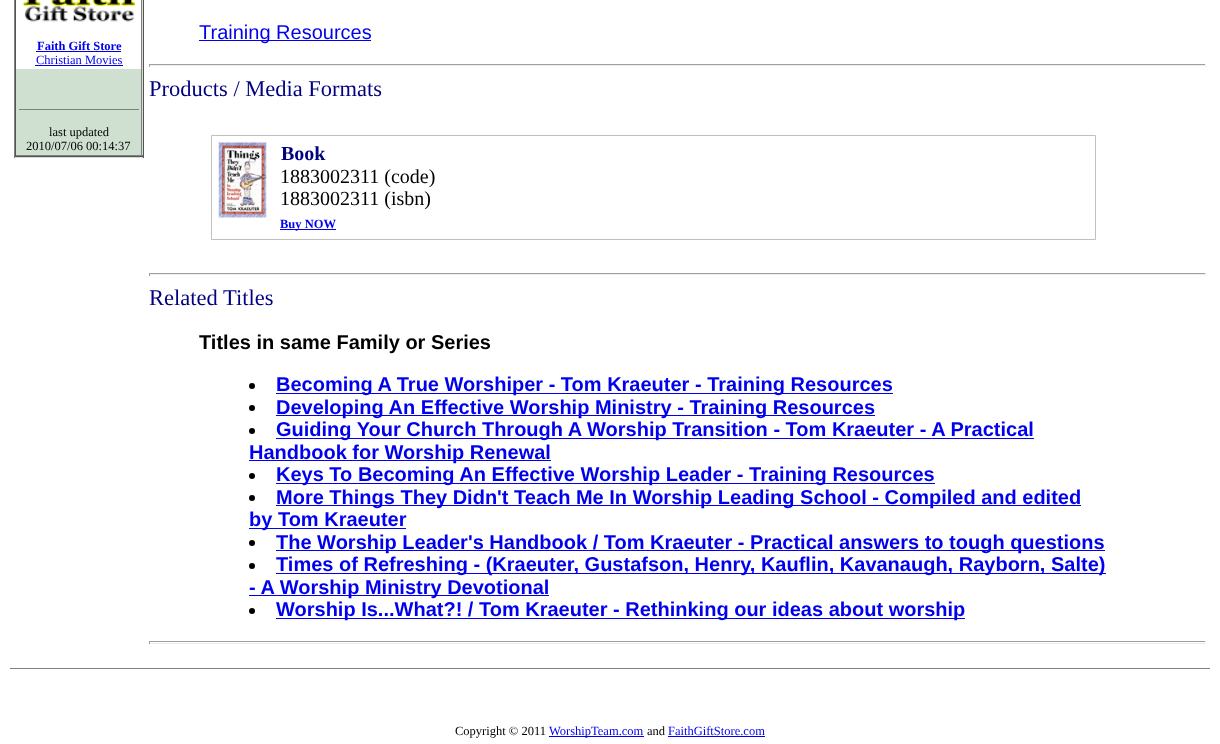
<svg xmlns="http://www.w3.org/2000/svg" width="1220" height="744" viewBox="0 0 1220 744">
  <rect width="100%" height="100%" fill="#fff"/>
  <path d="M15 0h128v158H15z" fill="#d0e0d0"/>
  <path d="M143 0h1v158H143z" fill="#555"/>
  <path d="M14 156h130v1H14z" fill="#555"/>
  <path d="M14 0h1v158H14z" fill="#808080"/>
  <path d="M141 0h1v156H141z" fill="#808080"/>
  <path d="M15 155h128v1H15z" fill="#808080"/>
  <path d="M15 0h1v156H15z" fill="#555"/>
  <path d="M16 0h125v69H16z" fill="#fff"/>
  <image x="22" y="0" width="113" height="22" href="img/1.png"/>
  <path d="M36 51h85v1H36z" fill="#00e"/>
  <path d="M35 65h88v1H35z" fill="#00e"/>
  <path d="M19 109h120v1H19z" fill="#808080"/>
  <path d="M199 40h172v1H199z" fill="#00e"/>
  <path d="M149 64h1057v1H149z" fill="#9f9f9f"/>
  <path d="M1205 64h1v3H1205z" fill="#eee"/>
  <path d="M149 65h1057v1H149z" fill="#eee"/>
  <path d="M149 64h1v3H149z" fill="#9f9f9f"/>
  <path d="M211.5 135.5h884v104H211.5z" fill="none" stroke="#c0c0c0"/>
  <image x="218" y="142" width="49" height="76" href="img/2.png"/>
  <path d="M280 229h56v1H280z" fill="#00e"/>
  <path d="M149 273h1057v1H149z" fill="#9f9f9f"/>
  <path d="M1205 273h1v3H1205z" fill="#eee"/>
  <path d="M149 274h1057v1H149z" fill="#eee"/>
  <path d="M149 273h1v3H149z" fill="#9f9f9f"/>
  <circle cx="252" cy="386" r="3" fill="#000"/>
  <path d="M276 393h617v1H276z" fill="#00e"/>
  <circle cx="252" cy="408" r="3" fill="#000"/>
  <path d="M276 415h599v1H276z" fill="#00e"/>
  <circle cx="252" cy="431" r="3" fill="#000"/>
  <path d="M276 438h758v1H276z" fill="#00e"/>
  <path d="M249 460h302v1H249z" fill="#00e"/>
  <circle cx="252" cy="476" r="3" fill="#000"/>
  <path d="M276 483h659v1H276z" fill="#00e"/>
  <circle cx="252" cy="498" r="3" fill="#000"/>
  <path d="M276 505h805v1H276z" fill="#00e"/>
  <path d="M249 528h157v1H249z" fill="#00e"/>
  <circle cx="252" cy="543" r="3" fill="#000"/>
  <path d="M276 550h829v1H276z" fill="#00e"/>
  <circle cx="252" cy="566" r="3" fill="#000"/>
  <path d="M276 573h830v1H276z" fill="#00e"/>
  <path d="M249 595h300v1H249z" fill="#00e"/>
  <circle cx="252" cy="611" r="3" fill="#000"/>
  <path d="M276 618h689v1H276z" fill="#00e"/>
  <path d="M149 641h1057v1H149z" fill="#9f9f9f"/>
  <path d="M1205 641h1v3H1205z" fill="#eee"/>
  <path d="M149 643h1057v1H149z" fill="#eee"/>
  <path d="M149 641h1v3H149z" fill="#9f9f9f"/>
  <path d="M10 668h1200v1H10z" fill="#808080"/>
  <path d="M549 736h95v1H549z" fill="#00e"/>
  <path d="M668 736h97v1H668z" fill="#00e"/>
  <text x="37" y="50" font-family="Liberation Serif" font-size="12.5" font-weight="bold" fill="#00e">Faith Gift Store</text>
  <text x="36" y="64" font-family="Liberation Serif" font-size="12.5" fill="#00e">Christian Movies</text>
  <g font-family="Liberation Serif" font-size="12.5" fill="#000">
    <text x="49" y="136">last updated</text>
    <text x="26" y="150">2010/07/06 00:14:37</text>
  </g>
  <text x="199" y="39" font-family="Liberation Sans" font-size="20" fill="#00e">Training Resources</text>
  <text x="149" y="96" font-family="Liberation Serif" font-size="22.5" fill="#000080">Products / Media Formats</text>
  <text x="281" y="160" font-family="Liberation Serif" font-size="20" font-weight="bold" fill="#000080">Book</text>
  <g font-family="Liberation Serif" font-size="20" fill="#000">
    <text x="280" y="183">1883002311 (code)</text>
    <text x="280" y="205">1883002311 (isbn)</text>
  </g>
  <text x="280" y="228" font-family="Liberation Serif" font-size="12.5" font-weight="bold" fill="#00e">Buy NOW</text>
  <text x="149" y="305" font-family="Liberation Serif" font-size="22.5" fill="#000080">Related Titles</text>
  <text x="199" y="349" font-family="Liberation Sans" font-size="20" font-weight="bold" fill="#000">Titles in same Family or Series</text>
  <g font-family="Liberation Sans" font-size="20" font-weight="bold" fill="#00e">
    <text x="276" y="391">Becoming A True Worshiper - Tom Kraeuter - Training Resources</text>
    <text x="276" y="414">Developing An Effective Worship Ministry - Training Resources</text>
    <text x="276" y="436">Guiding Your Church Through A Worship Transition - Tom Kraeuter - A Practical</text>
    <text x="249" y="459">Handbook for Worship Renewal</text>
    <text x="276" y="481">Keys To Becoming An Effective Worship Leader - Training Resources</text>
    <text x="276" y="504">More Things They Didn't Teach Me In Worship Leading School - Compiled and edited</text>
    <text x="249" y="526">by Tom Kraeuter</text>
    <text x="276" y="549">The Worship Leader's Handbook / Tom Kraeuter - Practical answers to tough questions</text>
    <text x="276" y="571">Times of Refreshing - (Kraeuter, Gustafson, Henry, Kauflin, Kavanaugh, Rayborn, Salte)</text>
    <text x="249" y="594">- A Worship Ministry Devotional</text>
    <text x="276" y="616">Worship Is...What?! / Tom Kraeuter - Rethinking our ideas about worship</text>
  </g>
  <text x="455" y="735" font-family="Liberation Serif" font-size="12.5" fill="#000">Copyright © 2011</text>
  <text x="549" y="735" font-family="Liberation Serif" font-size="12.5" fill="#00e">WorshipTeam.com</text>
  <text x="647" y="735" font-family="Liberation Serif" font-size="12.5" fill="#000">and</text>
  <text x="668" y="735" font-family="Liberation Serif" font-size="12.5" fill="#00e">FaithGiftStore.com</text>
</svg>
